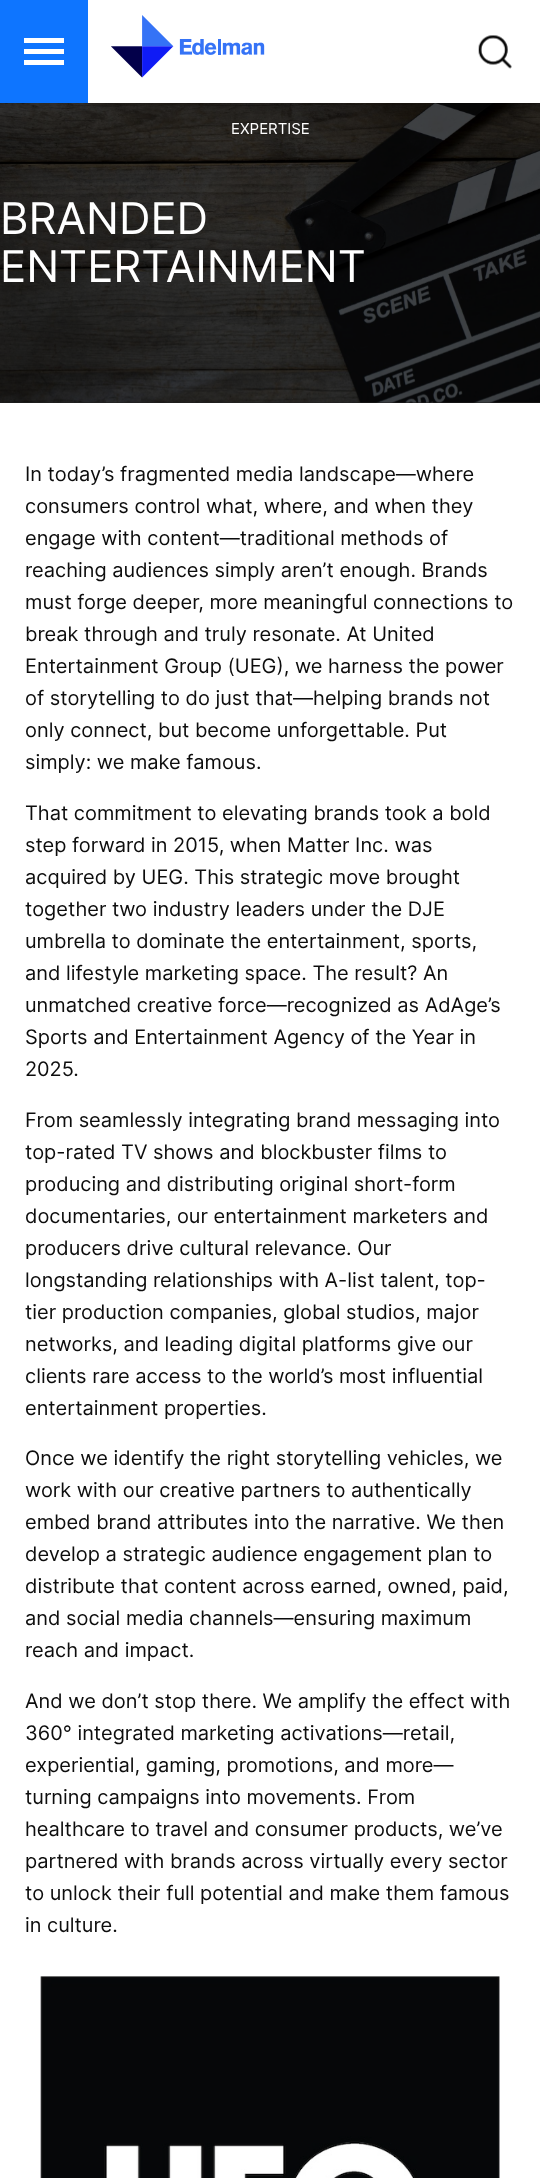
<svg xmlns="http://www.w3.org/2000/svg" width="540" height="2178" viewBox="0 0 540 2178">
  <rect width="100%" height="100%" fill="#fff"/>
  <path d="M0 0h88v103H0z" fill="#0e75ff"/>
  <path d="M24 49h40v5H24z" fill="#fff"/>
  <path d="M24 38h40v5H24z" fill="#fff"/>
  <path d="M24 60h40v5H24z" fill="#fff"/>
  <image x="478" y="35" width="34" height="34" href="img/1.png"/>
  <image x="111" y="15" width="154" height="63" href="img/2.png"/>
  <path d="M0 402h540v1H0z" fill="#1f1f1f"/>
  <image x="0" y="103" width="540" height="300" href="img/3.png"/>
  <image x="40" y="1976" width="460" height="202" href="img/4.png"/>
  <text x="231" y="134" font-family="Inter" font-size="15" fill="#fff">EXPERTISE</text>
  <g font-family="Inter" font-size="43.75" fill="#fff">
    <text x="0" y="234">BRANDED</text>
    <text x="0" y="282">ENTERTAINMENT</text>
  </g>
  <g font-family="Inter" font-size="20" fill="#0d0d0d">
    <text x="25" y="481">In today’s fragmented media landscape—where</text>
    <text x="25" y="513">consumers control what, where, and when they</text>
    <text x="25" y="545">engage with content—traditional methods of</text>
    <text x="25" y="577">reaching audiences simply aren’t enough. Brands</text>
    <text x="25" y="609">must forge deeper, more meaningful connections to</text>
    <text x="25" y="641">break through and truly resonate. At United</text>
    <text x="25" y="673">Entertainment Group (UEG), we harness the power</text>
    <text x="25" y="705">of storytelling to do just that—helping brands not</text>
    <text x="25" y="737">only connect, but become unforgettable. Put</text>
    <text x="25" y="769">simply: we make famous.</text>
    <text x="25" y="820">That commitment to elevating brands took a bold</text>
    <text x="25" y="852">step forward in 2015, when Matter Inc. was</text>
    <text x="25" y="884">acquired by UEG. This strategic move brought</text>
    <text x="25" y="916">together two industry leaders under the DJE</text>
    <text x="25" y="948">umbrella to dominate the entertainment, sports,</text>
    <text x="25" y="980">and lifestyle marketing space. The result? An</text>
    <text x="25" y="1012">unmatched creative force—recognized as AdAge’s</text>
    <text x="25" y="1044">Sports and Entertainment Agency of the Year in</text>
    <text x="25" y="1076">2025.</text>
    <text x="25" y="1127">From seamlessly integrating brand messaging into</text>
    <text x="25" y="1159">top-rated TV shows and blockbuster films to</text>
    <text x="25" y="1191">producing and distributing original short-form</text>
    <text x="25" y="1223">documentaries, our entertainment marketers and</text>
    <text x="25" y="1255">producers drive cultural relevance. Our</text>
    <text x="25" y="1287">longstanding relationships with A-list talent, top-</text>
    <text x="25" y="1319">tier production companies, global studios, major</text>
    <text x="25" y="1351">networks, and leading digital platforms give our</text>
    <text x="25" y="1383">clients rare access to the world’s most influential</text>
    <text x="25" y="1415">entertainment properties.</text>
    <text x="25" y="1465">Once we identify the right storytelling vehicles, we</text>
    <text x="25" y="1497">work with our creative partners to authentically</text>
    <text x="25" y="1529">embed brand attributes into the narrative. We then</text>
    <text x="25" y="1561">develop a strategic audience engagement plan to</text>
    <text x="25" y="1593">distribute that content across earned, owned, paid,</text>
    <text x="25" y="1625">and social media channels—ensuring maximum</text>
    <text x="25" y="1657">reach and impact.</text>
    <text x="25" y="1708">And we don’t stop there. We amplify the effect with</text>
    <text x="25" y="1740">360° integrated marketing activations—retail,</text>
    <text x="25" y="1772">experiential, gaming, promotions, and more—</text>
    <text x="25" y="1804">turning campaigns into movements. From</text>
    <text x="25" y="1836">healthcare to travel and consumer products, we’ve</text>
    <text x="25" y="1868">partnered with brands across virtually every sector</text>
    <text x="25" y="1900">to unlock their full potential and make them famous</text>
    <text x="25" y="1932">in culture.</text>
  </g>
</svg>
